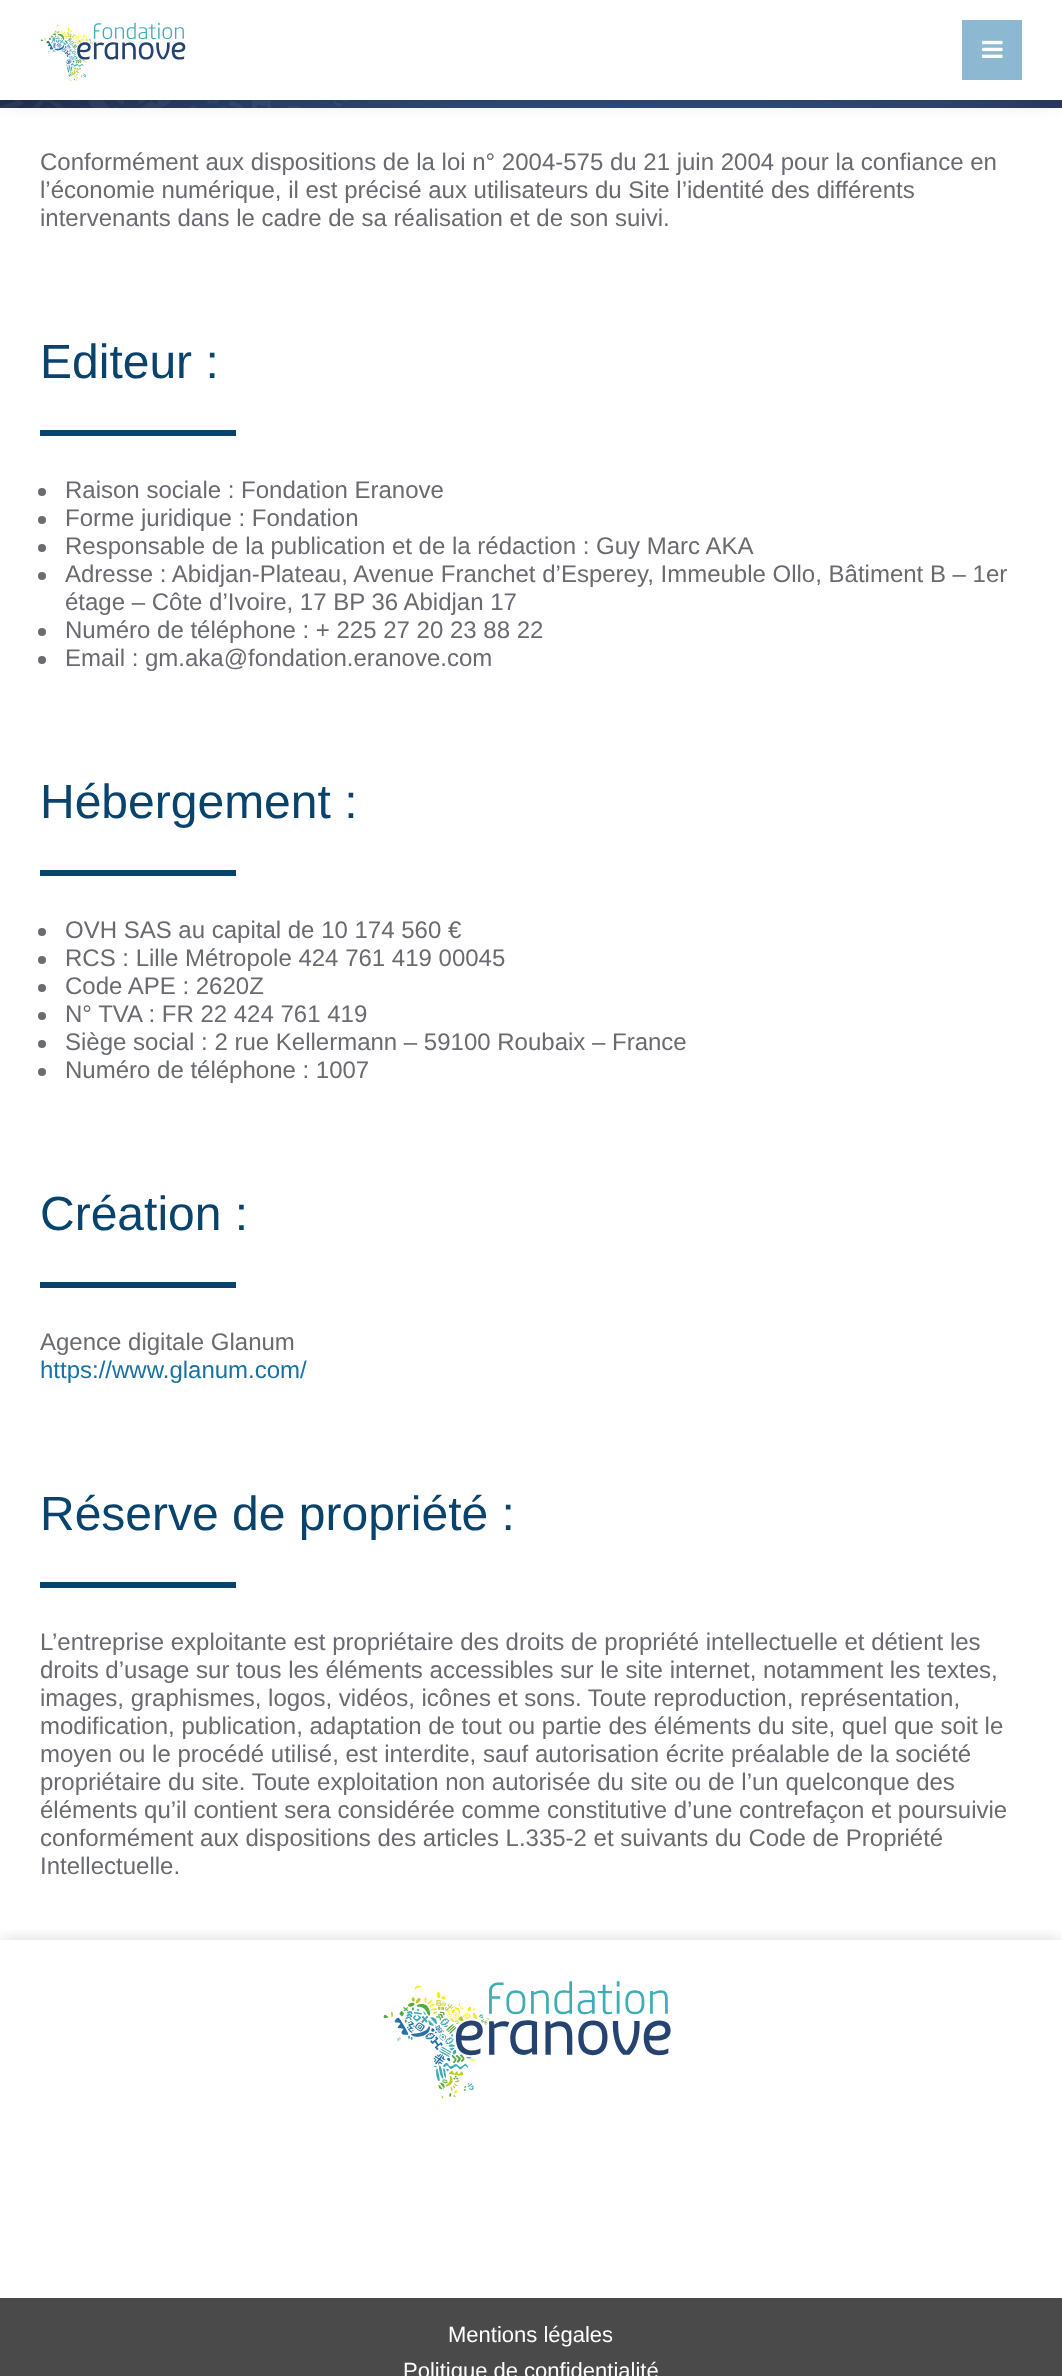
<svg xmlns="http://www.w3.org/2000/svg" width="1062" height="2376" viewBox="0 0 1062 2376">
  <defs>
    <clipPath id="clip1"><path d="M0 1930h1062v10H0z"/></clipPath>
  </defs>
  <rect width="100%" height="100%" fill="#fff"/>
  <image x="0" y="100" width="1062" height="8" href="img/3.png"/>
  <path d="M2 4h1058v96H2z" fill="#00000033" filter="blur(9px)"/>
  <path d="M0 0h1062v100H0z" fill="#fff"/>
  <image x="40" y="22" width="146" height="59" href="img/1.png"/>
  <path d="M962 20h60v60H962z" fill="#8cb8d1"/>
  <image x="982" y="40" width="21" height="18" href="img/2.png"/>
  <path d="M40 430h196v6H40z" fill="#08436d"/>
  <circle cx="42" cy="492" r="4" fill="#696b71"/>
  <circle cx="42" cy="520" r="4" fill="#696b71"/>
  <circle cx="42" cy="548" r="4" fill="#696b71"/>
  <circle cx="42" cy="576" r="4" fill="#696b71"/>
  <circle cx="42" cy="632" r="4" fill="#696b71"/>
  <circle cx="42" cy="660" r="4" fill="#696b71"/>
  <path d="M40 870h196v6H40z" fill="#08436d"/>
  <circle cx="42" cy="932" r="4" fill="#696b71"/>
  <circle cx="42" cy="960" r="4" fill="#696b71"/>
  <circle cx="42" cy="988" r="4" fill="#696b71"/>
  <circle cx="42" cy="1016" r="4" fill="#696b71"/>
  <circle cx="42" cy="1044" r="4" fill="#696b71"/>
  <circle cx="42" cy="1072" r="4" fill="#696b71"/>
  <path d="M40 1282h196v6H40z" fill="#08436d"/>
  <path d="M40 1582h196v6H40z" fill="#08436d"/>
  <g clip-path="url(#clip1)">
    <path d="M2 1942h1058v354H2z" fill="#00000033" filter="blur(9px)"/>
  </g>
  <image x="383" y="1981" width="288" height="118" href="img/4.png"/>
  <path d="M0 2298h1062v78H0z" fill="#4a4a4a"/>
  <g font-family="Liberation Sans" font-size="24" fill="#696b71">
    <text x="40" y="170">Conformément aux dispositions de la loi n° 2004-575 du 21 juin 2004 pour la confiance en</text>
    <text x="40" y="198">l’économie numérique, il est précisé aux utilisateurs du Site l’identité des différents</text>
    <text x="40" y="226">intervenants dans le cadre de sa réalisation et de son suivi.</text>
  </g>
  <text x="40" y="378" font-family="Liberation Sans" font-size="48" fill="#08436d">Editeur :</text>
  <g font-family="Liberation Sans" font-size="24" fill="#696b71">
    <text x="65" y="498">Raison sociale : Fondation Eranove</text>
    <text x="65" y="526">Forme juridique : Fondation</text>
    <text x="65" y="554">Responsable de la publication et de la rédaction : Guy Marc AKA</text>
    <text x="65" y="582">Adresse : Abidjan-Plateau, Avenue Franchet d’Esperey, Immeuble Ollo, Bâtiment B – 1er</text>
    <text x="65" y="610">étage – Côte d’Ivoire, 17 BP 36 Abidjan 17</text>
    <text x="65" y="638">Numéro de téléphone : + 225 27 20 23 88 22</text>
    <text x="65" y="666">Email : gm.aka@fondation.eranove.com</text>
  </g>
  <text x="40" y="818" font-family="Liberation Sans" font-size="48" fill="#08436d">Hébergement :</text>
  <g font-family="Liberation Sans" font-size="24" fill="#696b71">
    <text x="65" y="938">OVH SAS au capital de 10 174 560 €</text>
    <text x="65" y="966">RCS : Lille Métropole 424 761 419 00045</text>
    <text x="65" y="994">Code APE : 2620Z</text>
    <text x="65" y="1022">N° TVA : FR 22 424 761 419</text>
    <text x="65" y="1050">Siège social : 2 rue Kellermann – 59100 Roubaix – France</text>
    <text x="65" y="1078">Numéro de téléphone : 1007</text>
  </g>
  <text x="40" y="1230" font-family="Liberation Sans" font-size="48" fill="#08436d">Création :</text>
  <text x="40" y="1350" font-family="Liberation Sans" font-size="24" fill="#696b71">Agence digitale Glanum</text>
  <text x="40" y="1378" font-family="Liberation Sans" font-size="24" fill="#1971a3">https://www.glanum.com/</text>
  <text x="40" y="1530" font-family="Liberation Sans" font-size="48" fill="#08436d">Réserve de propriété :</text>
  <g font-family="Liberation Sans" font-size="24" fill="#696b71">
    <text x="40" y="1650">L’entreprise exploitante est propriétaire des droits de propriété intellectuelle et détient les</text>
    <text x="40" y="1678">droits d’usage sur tous les éléments accessibles sur le site internet, notamment les textes,</text>
    <text x="40" y="1706">images, graphismes, logos, vidéos, icônes et sons. Toute reproduction, représentation,</text>
    <text x="40" y="1734">modification, publication, adaptation de tout ou partie des éléments du site, quel que soit le</text>
    <text x="40" y="1762">moyen ou le procédé utilisé, est interdite, sauf autorisation écrite préalable de la société</text>
    <text x="40" y="1790">propriétaire du site. Toute exploitation non autorisée du site ou de l’un quelconque des</text>
    <text x="40" y="1818">éléments qu’il contient sera considérée comme constitutive d’une contrefaçon et poursuivie</text>
    <text x="40" y="1846">conformément aux dispositions des articles L.335-2 et suivants du Code de Propriété</text>
    <text x="40" y="1874">Intellectuelle.</text>
  </g>
  <g font-family="Liberation Sans" font-size="22" fill="#fff">
    <text x="448" y="2342">Mentions légales</text>
    <text x="403" y="2378">Politique de confidentialité</text>
  </g>
</svg>
